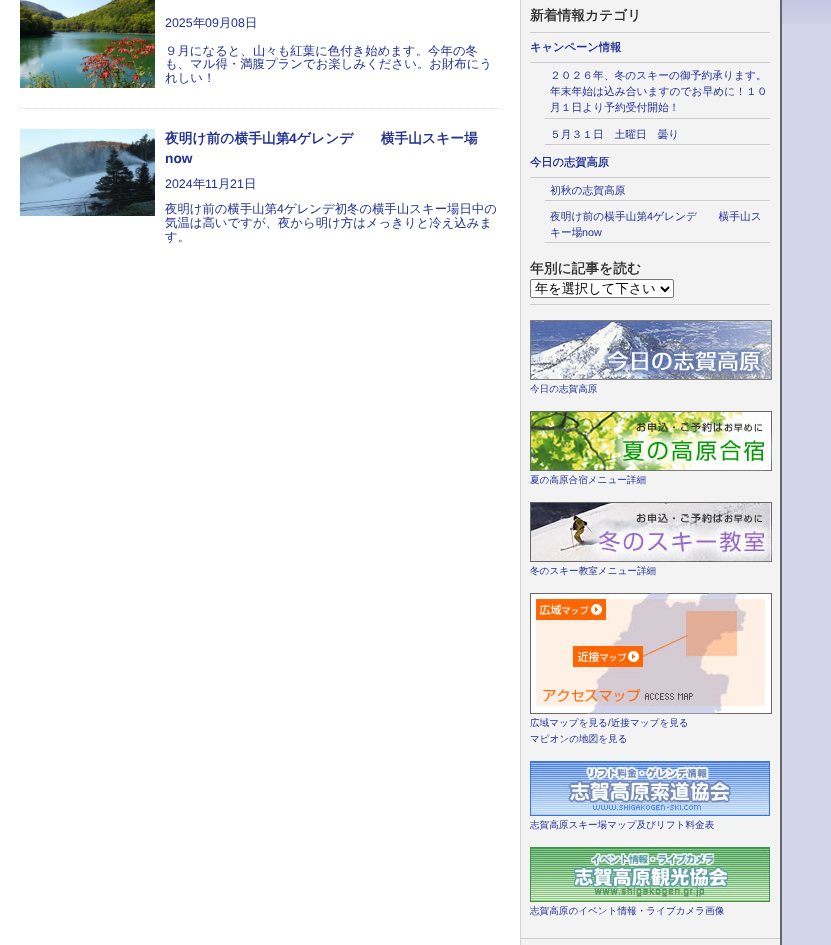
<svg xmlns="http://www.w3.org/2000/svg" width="831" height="945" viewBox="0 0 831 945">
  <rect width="100%" height="100%" fill="#d3d5ea"/>
  <image x="782" y="0" width="49" height="24" href="img/1.png"/>
  <path d="M0 0h520v945H0z" fill="#fff"/>
  <path d="M780 0h2v945H780z" fill="#666769"/>
  <image x="520" y="0" width="260" height="945" href="img/2.png"/>
  <path d="M20 108.5H500" fill="none" stroke="#ddd" stroke-dasharray="1 1"/>
  <image x="20" y="0" width="135" height="88" href="img/3.png"/>
  <image x="20" y="129" width="135" height="87" href="img/4.png"/>
  <path d="M530 32h240v1H530z" fill="#cdcdcd"/>
  <path d="M530 62h240v1H530z" fill="#cdcdcd"/>
  <path d="M545 118h225v1H545z" fill="#cdcdcd"/>
  <path d="M545 144h225v1H545z" fill="#cdcdcd"/>
  <path d="M530 177h240v1H530z" fill="#cdcdcd"/>
  <path d="M545 200h225v1H545z" fill="#cdcdcd"/>
  <path d="M545 242h225v1H545z" fill="#cdcdcd"/>
  <path d="M530 304h240v1H530z" fill="#cdcdcd"/>
  <rect x="530.5" y="279.5" width="143" height="18" rx="1.5" fill="#fff" stroke="#767676"/>
  <path d="M661 287L665 291L669 287" fill="none" stroke="#000" stroke-width="2"/>
  <image x="530" y="320" width="242" height="60" href="img/5.png"/>
  <image x="530" y="411" width="242" height="60" href="img/6.png"/>
  <image x="530" y="502" width="242" height="60" href="img/7.png"/>
  <image x="530" y="593" width="242" height="121" href="img/8.png"/>
  <image x="530" y="761" width="240" height="55" href="img/9.png"/>
  <image x="530" y="847" width="240" height="55" href="img/10.png"/>
  <path d="M520 938h260v1H520z" fill="#cdcdcd"/>
  <text x="165" y="27" font-family="Liberation Sans" font-size="12.4" fill="#1f2f94">2025</text>
  <text x="193" y="27" font-family="WenQuanYi Zen Hei" font-size="12.4" font-weight="500" fill="#1f2f94">年</text>
  <text x="205" y="27" font-family="Liberation Sans" font-size="12.4" fill="#1f2f94">09</text>
  <text x="219" y="27" font-family="WenQuanYi Zen Hei" font-size="12.4" font-weight="500" fill="#1f2f94">月</text>
  <text x="231" y="27" font-family="Liberation Sans" font-size="12.4" fill="#1f2f94">08</text>
  <g font-family="WenQuanYi Zen Hei" font-size="12.4" font-weight="500" fill="#1f2f94">
    <text x="245" y="27">日</text>
    <text x="165" y="55">９月になると、山々も紅葉に色付き始めます。今年の冬</text>
    <text x="165" y="68">も、マル得・満腹プランでお楽しみください。お財布にう</text>
    <text x="165" y="82">れしい！</text>
  </g>
  <text x="165" y="143" font-family="WenQuanYi Zen Hei" font-size="13.75" font-weight="bold" fill="#1f2f94">夜明け前の横手山第</text>
  <text x="289" y="143" font-family="Liberation Sans" font-size="13.75" font-weight="bold" fill="#1f2f94">4</text>
  <text x="297" y="143" font-family="WenQuanYi Zen Hei" font-size="13.75" font-weight="bold" fill="#1f2f94">ゲレンデ　　横手山スキー場</text>
  <text x="165" y="163" font-family="Liberation Sans" font-size="13.75" font-weight="bold" fill="#1f2f94">now</text>
  <text x="165" y="188" font-family="Liberation Sans" font-size="12.4" fill="#1f2f94">2024</text>
  <text x="193" y="188" font-family="WenQuanYi Zen Hei" font-size="12.4" font-weight="500" fill="#1f2f94">年</text>
  <text x="205" y="188" font-family="Liberation Sans" font-size="12.4" fill="#1f2f94">11</text>
  <text x="218" y="188" font-family="WenQuanYi Zen Hei" font-size="12.4" font-weight="500" fill="#1f2f94">月</text>
  <text x="230" y="188" font-family="Liberation Sans" font-size="12.4" fill="#1f2f94">21</text>
  <g font-family="WenQuanYi Zen Hei" font-size="12.4" font-weight="500" fill="#1f2f94">
    <text x="244" y="188">日</text>
    <text x="165" y="213">夜明け前の横手山第</text>
  </g>
  <text x="277" y="213" font-family="Liberation Sans" font-size="12.4" fill="#1f2f94">4</text>
  <g font-family="WenQuanYi Zen Hei" font-size="12.4" font-weight="500" fill="#1f2f94">
    <text x="284" y="213">ゲレンデ初冬の横手山スキー場日中の</text>
    <text x="165" y="227">気温は高いですが、夜から明け方はメっきりと冷え込みま</text>
    <text x="165" y="241">す。</text>
  </g>
  <text x="530" y="20" font-family="WenQuanYi Zen Hei" font-size="13.75" font-weight="bold" fill="#333">新着情報カテゴリ</text>
  <text x="530" y="51" font-family="WenQuanYi Zen Hei" font-size="11.25" font-weight="bold" fill="#1f2f94">キャンペーン情報</text>
  <g font-family="WenQuanYi Zen Hei" font-size="10.75" font-weight="500" fill="#1f2f94">
    <text x="550" y="79">２０２６年、冬のスキーの御予約承ります。</text>
    <text x="550" y="95">年末年始は込み合いますのでお早めに！１０</text>
    <text x="550" y="111">月１日より予約受付開始！</text>
    <text x="550" y="138">５月３１日　土曜日　曇り</text>
  </g>
  <text x="530" y="166" font-family="WenQuanYi Zen Hei" font-size="11.25" font-weight="bold" fill="#1f2f94">今日の志賀高原</text>
  <g font-family="WenQuanYi Zen Hei" font-size="10.75" font-weight="500" fill="#1f2f94">
    <text x="550" y="194">初秋の志賀高原</text>
    <text x="550" y="220">夜明け前の横手山第</text>
  </g>
  <text x="647" y="220" font-family="Liberation Sans" font-size="10.75" fill="#1f2f94">4</text>
  <g font-family="WenQuanYi Zen Hei" font-size="10.75" font-weight="500" fill="#1f2f94">
    <text x="653" y="220">ゲレンデ　　横手山ス</text>
    <text x="550" y="236">キー場</text>
  </g>
  <text x="582" y="236" font-family="Liberation Sans" font-size="10.75" fill="#1f2f94">now</text>
  <text x="530" y="273" font-family="WenQuanYi Zen Hei" font-size="13.75" font-weight="bold" fill="#333">年別に記事を読む</text>
  <text x="535" y="293" font-family="WenQuanYi Zen Hei" font-size="13.25" font-weight="500" fill="#000">年を選択して下さい</text>
  <g font-family="WenQuanYi Zen Hei" font-size="9.6" font-weight="500" fill="#1f2f94">
    <text x="530" y="392">今日の志賀高原</text>
    <text x="530" y="483">夏の高原合宿メニュー詳細</text>
    <text x="530" y="574">冬のスキー教室メニュー詳細</text>
    <text x="530" y="726">広域マップを見る 近接マップを見る</text>
  </g>
  <text x="608" y="726" font-family="Liberation Sans" font-size="9.6" fill="#333">/</text>
  <g font-family="WenQuanYi Zen Hei" font-size="9.6" font-weight="500" fill="#1f2f94">
    <text x="530" y="742">マピオンの地図を見る</text>
    <text x="530" y="828">志賀高原スキー場マップ及びリフト料金表</text>
    <text x="530" y="914">志賀高原のイベント情報・ライブカメラ画像</text>
  </g>
</svg>
